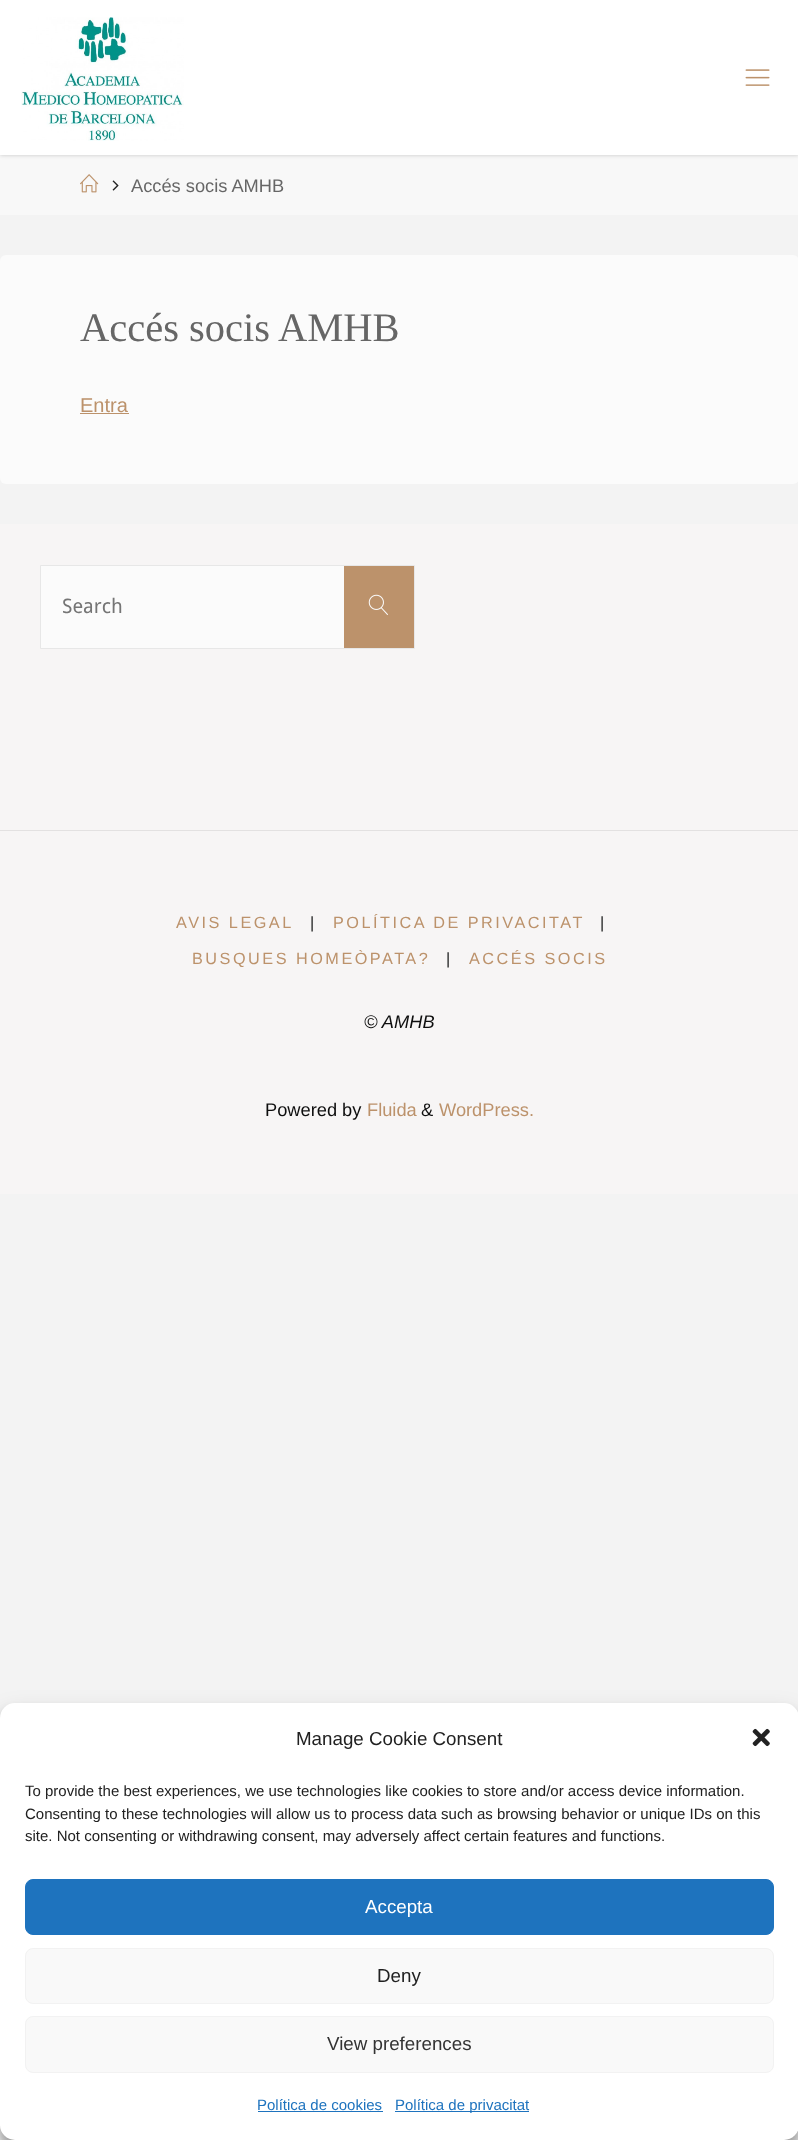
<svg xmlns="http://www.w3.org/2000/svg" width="798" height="2140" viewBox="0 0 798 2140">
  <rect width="100%" height="100%" fill="#f3f3f3"/>
  <path d="M0 155h798v60H0z" fill="#f8f8f8"/>
  <path d="M0 0h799v155H0z" fill="#00000033" filter="blur(2px)"/>
  <path d="M0 0h798v155H0z" fill="#fff"/>
  <image x="21" y="17" width="163" height="124" href="img/1.png"/>
  <image x="745" y="69" width="25" height="17" href="img/2.png"/>
  <image x="80" y="174" width="19" height="19" href="img/3.png"/>
  <image x="112" y="180" width="7" height="11" href="img/4.png"/>
  <rect y="255" width="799" height="229" rx="6" fill="#fbfbfb"/>
  <path d="M80 413h49v1H80z" fill="#bc926b"/>
  <path d="M0 524h798v306H0z" fill="#f7f5f5"/>
  <path d="M41 566h303v82H41z" fill="#fbfbfb"/>
  <path d="M40.5 565.5h374v83H40.5z" fill="none" stroke="#e7e7e7"/>
  <path d="M344 566h70v82H344z" fill="#bc926b"/>
  <image x="368" y="594" width="20" height="21" href="img/5.png"/>
  <path d="M0 831h798v363H0z" fill="#f7f5f5"/>
  <path d="M0 830h798v1H0z" fill="#e3e1e1"/>
  <rect y="1710" width="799" height="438" rx="15" fill="#0000003b" filter="blur(4px)"/>
  <rect y="1715" width="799" height="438" rx="15" fill="#00000030" filter="blur(12.5px)"/>
  <rect y="1703" width="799" height="437" rx="15" fill="#fff"/>
  <image x="752" y="1728" width="18" height="19" href="img/6.png"/>
  <rect x="25.5" y="1879.5" width="748" height="55" rx="7.5" fill="#1e73be" stroke="#1e73be"/>
  <rect x="25.5" y="1948.5" width="748" height="55" rx="7.5" fill="#f9f9f9" stroke="#f2f2f2"/>
  <rect x="25.5" y="2016.5" width="748" height="56" rx="7.5" fill="#f9f9f9" stroke="#f2f2f2"/>
  <path d="M258 2111h125v1H258z" fill="#1e73be"/>
  <path d="M395 2111h134v1H395z" fill="#1e73be"/>
  <text x="131" y="192" font-family="Liberation Sans" font-size="18.25" fill="#666">Accés socis AMHB</text>
  <text x="80" y="341" font-family="Liberation Serif" font-size="40.5" fill="#666">Accés socis AMHB</text>
  <text x="80" y="412" font-family="Liberation Sans" font-size="20" fill="#bc926b">Entra</text>
  <text x="62" y="613" font-family="Droid Sans" font-size="20" fill="#757575">Search</text>
  <text x="176" y="928" font-family="Liberation Sans" font-size="16.25" letter-spacing="2.5" fill="#bc926b">AVIS LEGAL</text>
  <text x="310" y="928" font-family="Liberation Sans" font-size="16.25" letter-spacing="2.5" fill="#212121">|</text>
  <text x="333" y="928" font-family="Liberation Sans" font-size="16.25" letter-spacing="2.5" fill="#bc926b">POLÍTICA DE PRIVACITAT</text>
  <text x="600" y="928" font-family="Liberation Sans" font-size="16.25" letter-spacing="2.5" fill="#212121">|</text>
  <text x="192" y="964" font-family="Liberation Sans" font-size="16.25" letter-spacing="2.5" fill="#bc926b">BUSQUES HOMEÒPATA?</text>
  <text x="446" y="964" font-family="Liberation Sans" font-size="16.25" letter-spacing="2.5" fill="#212121">|</text>
  <text x="469" y="964" font-family="Liberation Sans" font-size="16.25" letter-spacing="2.5" fill="#bc926b">ACCÉS SOCIS</text>
  <text x="364" y="1028" font-family="Liberation Sans" font-size="18.25" font-style="italic" fill="#0e0e0e">© AMHB</text>
  <text x="265" y="1116" font-family="Liberation Sans" font-size="18.25" fill="#0e0e0e">Powered by</text>
  <text x="367" y="1116" font-family="Liberation Sans" font-size="18.25" fill="#bc926b">Fluida</text>
  <text x="421" y="1116" font-family="Liberation Sans" font-size="18.25" fill="#0e0e0e">&amp;</text>
  <text x="439" y="1116" font-family="Liberation Sans" font-size="18.25" fill="#bc926b">WordPress.</text>
  <text x="296" y="1745" font-family="Liberation Sans" font-size="18.75" fill="#212121">Manage Cookie Consent</text>
  <g font-family="Liberation Sans" font-size="15" fill="#212121">
    <text x="25" y="1796">To provide the best experiences, we use technologies like cookies to store and/or access device information.</text>
    <text x="25" y="1819">Consenting to these technologies will allow us to process data such as browsing behavior or unique IDs on this</text>
    <text x="25" y="1841">site. Not consenting or withdrawing consent, may adversely affect certain features and functions.</text>
  </g>
  <text x="365" y="1913" font-family="Liberation Sans" font-size="18.75" fill="#fff">Accepta</text>
  <text x="377" y="1982" font-family="Liberation Sans" font-size="18.75" fill="#212121">Deny</text>
  <text x="327" y="2050" font-family="Liberation Sans" font-size="18.75" fill="#333">View preferences</text>
  <g font-family="Liberation Sans" font-size="15" fill="#1e73be">
    <text x="257" y="2110">Política de cookies</text>
    <text x="395" y="2110">Política de privacitat</text>
  </g>
</svg>
